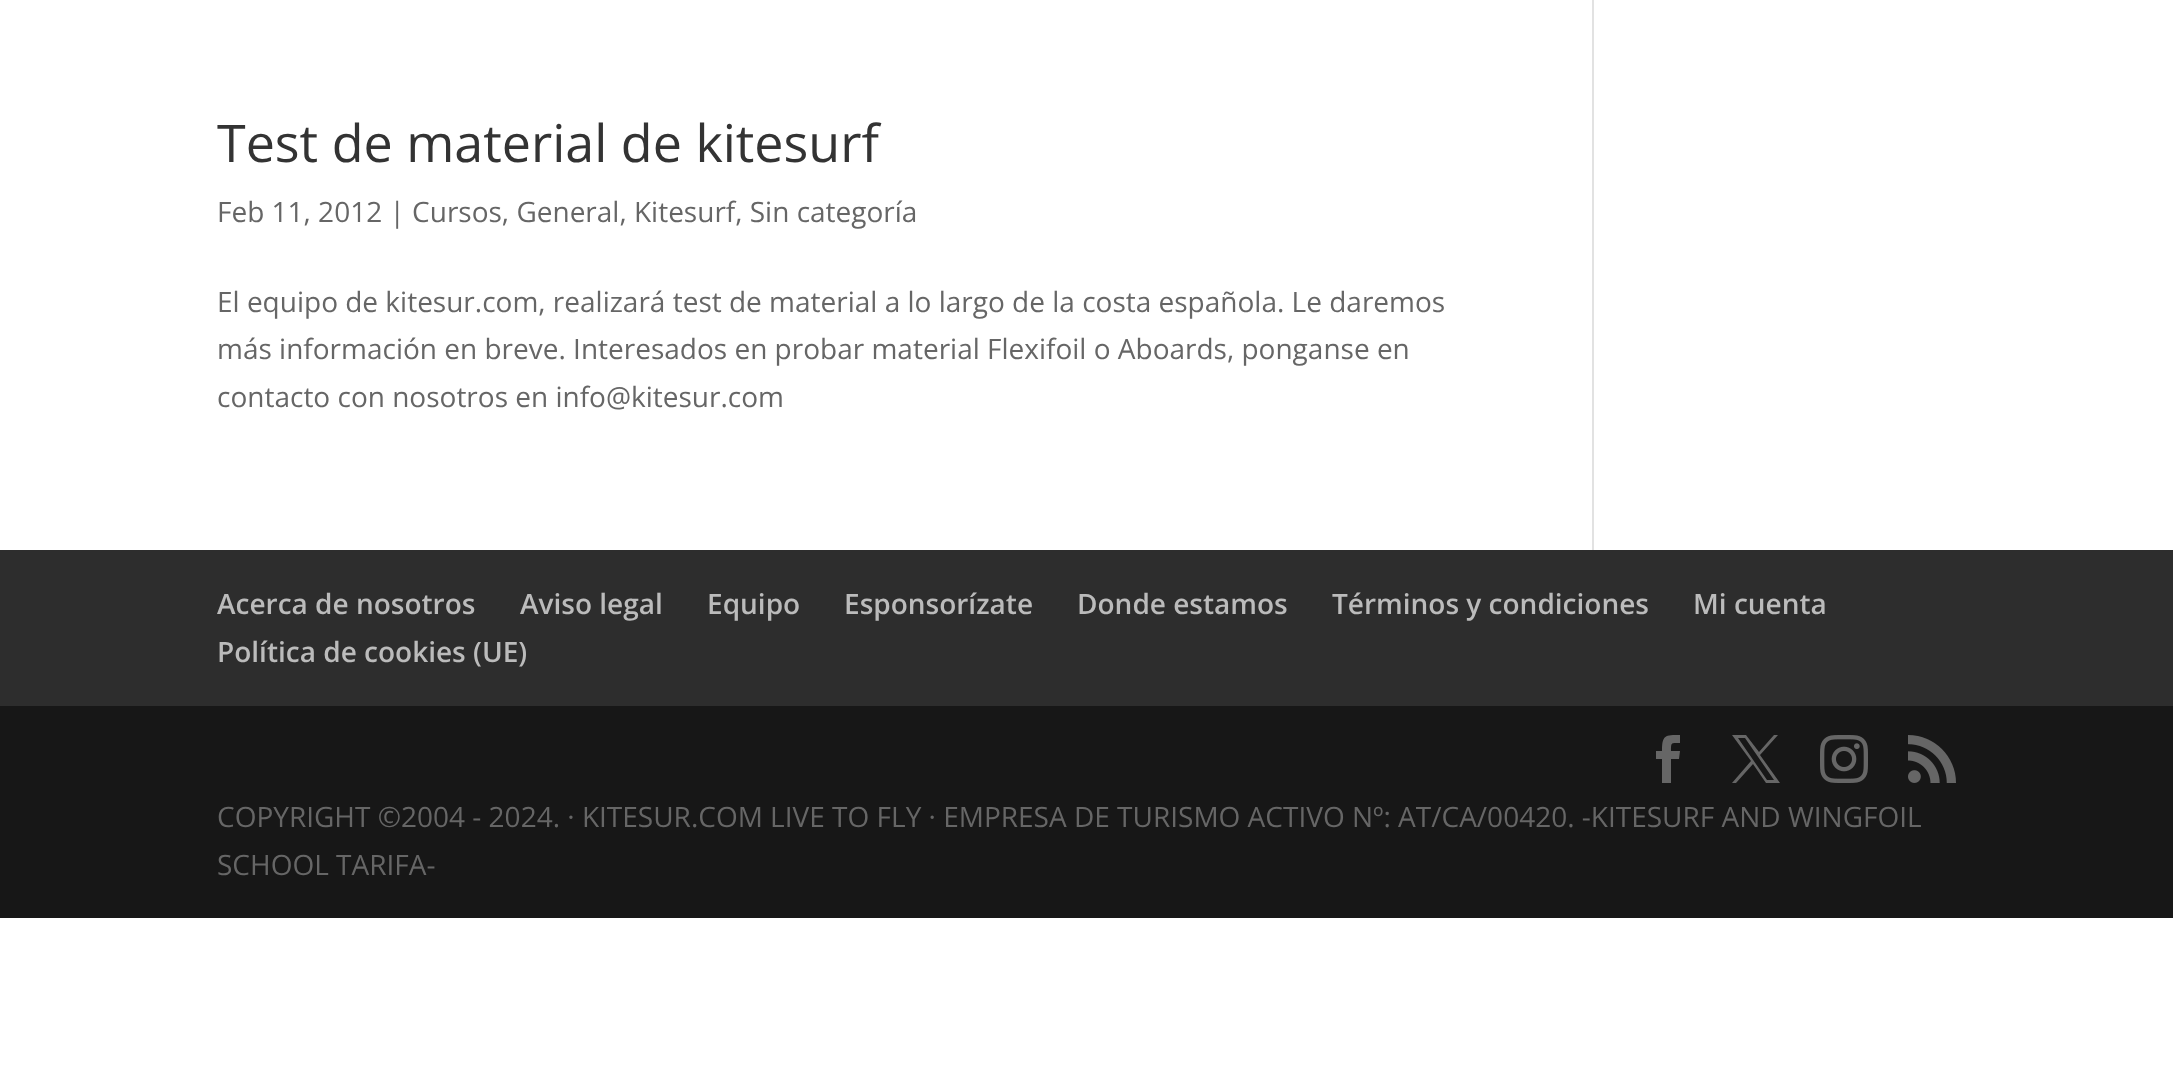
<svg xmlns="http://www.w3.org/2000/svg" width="2173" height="1069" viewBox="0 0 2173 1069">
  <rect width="100%" height="100%" fill="#fff"/>
  <path d="M1592 0h2v550H1592z" fill="#e2e2e2"/>
  <path d="M0 550h2173v156H0z" fill="#2d2d2d"/>
  <path d="M0 706h2173v212H0z" fill="#171717"/>
  <path d="M1662 783H1671V759H1679L1680 751H1671C1671 742 1671 743 1680 743V735C1665 735 1662 735 1662 751H1656V759H1662Z" fill="#666"/>
  <path d="M1732 735L1751 761L1732 783H1736L1753 764L1766 783H1780L1760 755L1778 735H1774L1759 752L1746 735ZM1738 738H1745L1774 780H1767Z" fill="#666"/>
  <image x="1820" y="735" width="48" height="48" href="img/1.png"/>
  <image x="1908" y="735" width="48" height="48" href="img/2.png"/>
  <text x="217" y="162" font-family="Open Sans" font-size="52" fill="#333">Test de material de kitesurf</text>
  <g font-family="Open Sans" font-size="28" fill="#666">
    <text x="217" y="222">Feb 11, 2012 | Cursos, General, Kitesurf, Sin categoría</text>
    <text x="217" y="312">El equipo de kitesur.com, realizará test de material a lo largo de la costa española. Le daremos</text>
    <text x="217" y="359">más información en breve. Interesados en probar material Flexifoil o Aboards, ponganse en</text>
    <text x="217" y="407">contacto con nosotros en info@kitesur.com</text>
  </g>
  <g font-family="Open Sans" font-size="28" font-weight="600" fill="#bbb">
    <text x="217" y="614">Acerca de nosotros</text>
    <text x="520" y="614">Aviso legal</text>
    <text x="707" y="614">Equipo</text>
    <text x="844" y="614">Esponsorízate</text>
    <text x="1077" y="614">Donde estamos</text>
    <text x="1332" y="614">Términos y condiciones</text>
    <text x="1693" y="614">Mi cuenta</text>
    <text x="217" y="662">Política de cookies (UE)</text>
  </g>
  <g font-family="Open Sans" font-size="28" fill="#666">
    <text x="217" y="827">COPYRIGHT ©2004 - 2024. · KITESUR.COM LIVE TO FLY · EMPRESA DE TURISMO ACTIVO Nº: AT/CA/00420. -KITESURF AND WINGFOIL</text>
    <text x="217" y="875">SCHOOL TARIFA-</text>
  </g>
</svg>
